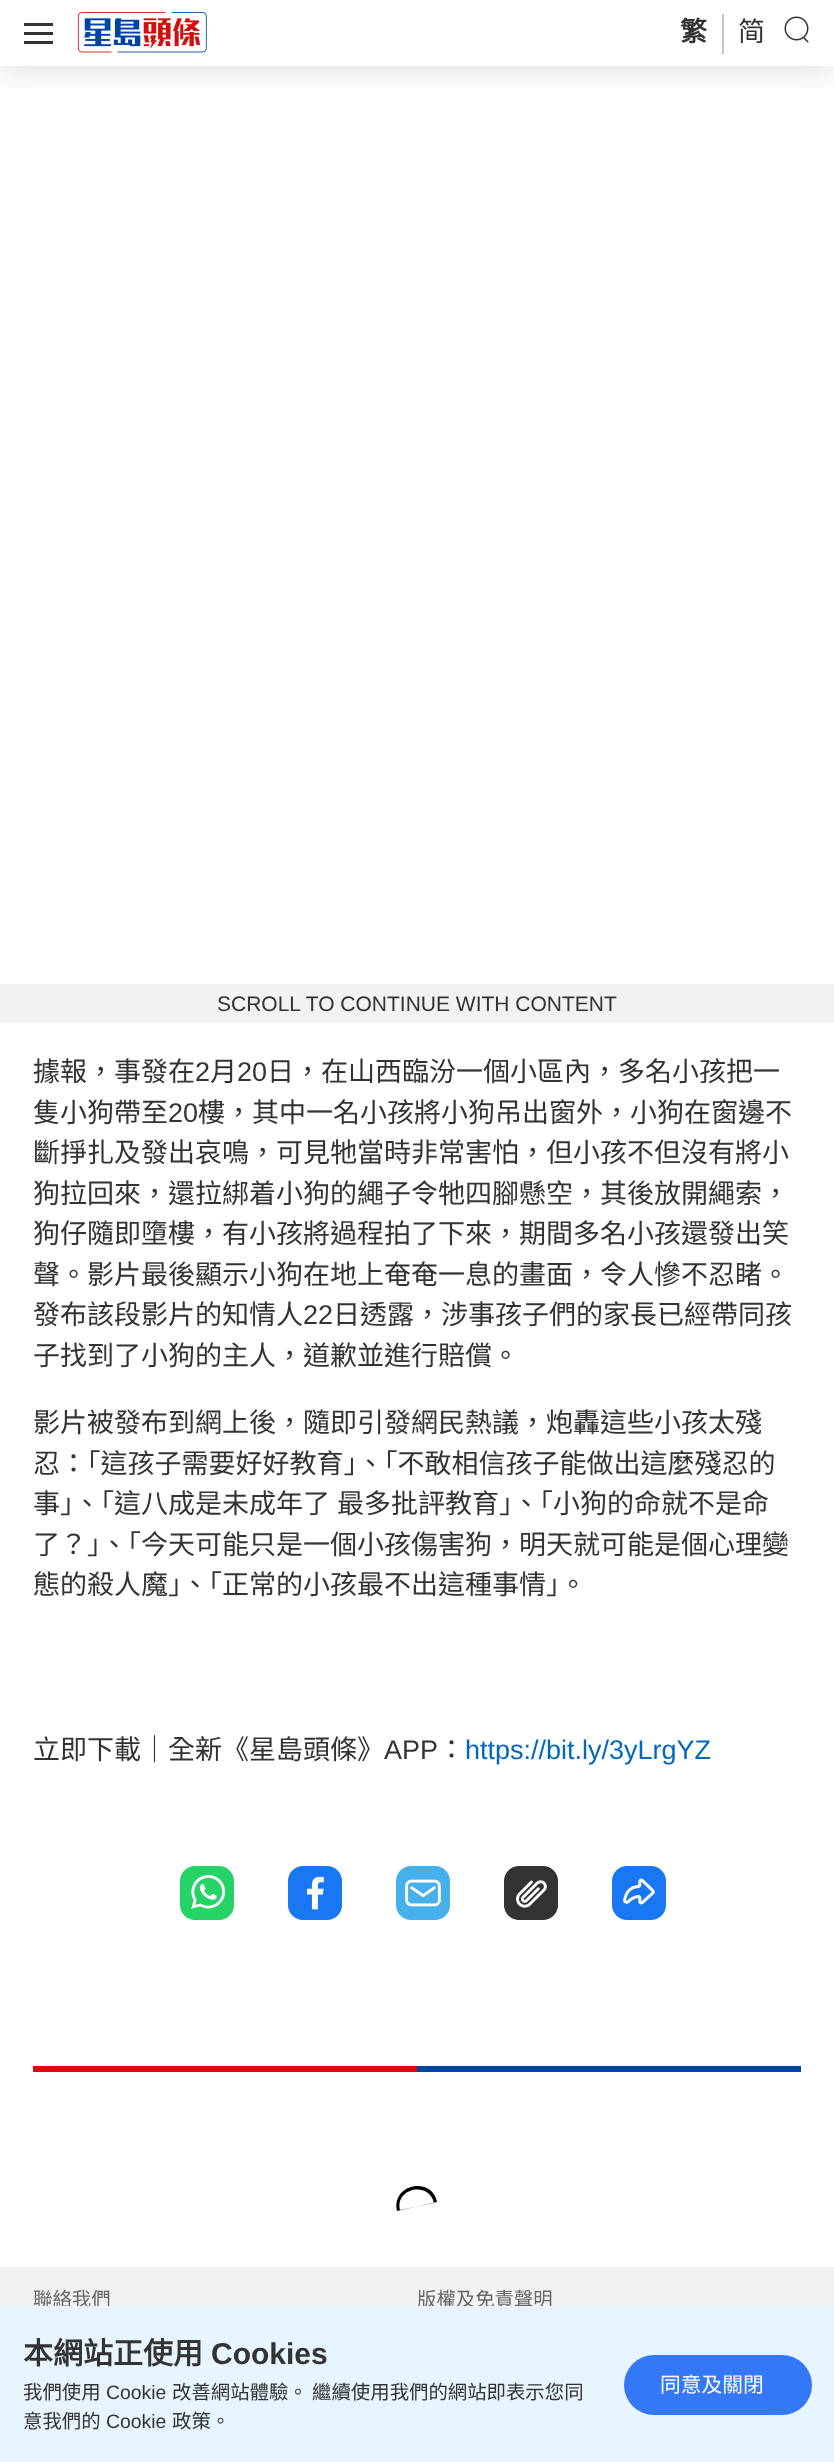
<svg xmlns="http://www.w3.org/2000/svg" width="834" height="2462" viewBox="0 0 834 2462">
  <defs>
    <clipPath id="clip1"><path d="M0 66h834v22H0z"/></clipPath>
  </defs>
  <rect width="100%" height="100%" fill="#fff"/>
  <g clip-path="url(#clip1)">
    <path d="M0 2h834v66H0z" fill="#00000026" filter="blur(18px)"/>
  </g>
  <path d="M24 23h29v3H24z" fill="#333"/>
  <path d="M24 32h29v3H24z" fill="#333"/>
  <path d="M24 41h29v3H24z" fill="#333"/>
  <image x="77" y="12" width="130" height="41" href="img/1.png"/>
  <path d="M722 14h2v40H722z" fill="#c7c7c7"/>
  <image x="784" y="16" width="25" height="27" href="img/2.png"/>
  <path d="M0 984h834v39H0z" fill="#f2f2f2"/>
  <image x="180" y="1866" width="54" height="54" href="img/3.png"/>
  <image x="288" y="1866" width="54" height="54" href="img/4.png"/>
  <image x="396" y="1866" width="54" height="54" href="img/5.png"/>
  <image x="504" y="1866" width="54" height="54" href="img/6.png"/>
  <image x="612" y="1866" width="54" height="54" href="img/7.png"/>
  <path d="M33 2066h384v6H33z" fill="#d60d0d"/>
  <path d="M417 2066h384v6H417z" fill="#0044a1"/>
  <path d="M437 2202C432 2176 391 2184 397 2211M400 2210C395 2188 429 2181 434 2203" fill="#000"/>
  <path d="M0 2267h834v39H0z" fill="#f2f2f2"/>
  <text x="680" y="41" font-family="Noto Sans CJK HK" font-size="27" font-weight="bold" fill="#333">繁</text>
  <text x="738" y="41" font-family="Noto Sans CJK HK" font-size="27" fill="#333">简</text>
  <text x="217" y="1011" font-family="Liberation Sans" font-size="21" fill="#333">SCROLL TO CONTINUE WITH CONTENT</text>
  <text x="33" y="1081" font-family="Noto Sans CJK HK" font-size="27" fill="#333">據報，事發在</text>
  <text x="195" y="1081" font-family="Liberation Sans" font-size="27" fill="#333">2</text>
  <text x="210" y="1081" font-family="Noto Sans CJK HK" font-size="27" fill="#333">月</text>
  <text x="237" y="1081" font-family="Liberation Sans" font-size="27" fill="#333">20</text>
  <g font-family="Noto Sans CJK HK" font-size="27" fill="#333">
    <text x="267" y="1081">日，在山西臨汾一個小區內，多名小孩把一</text>
    <text x="33" y="1122">隻小狗帶至</text>
  </g>
  <text x="168" y="1122" font-family="Liberation Sans" font-size="27" fill="#333">20</text>
  <g font-family="Noto Sans CJK HK" font-size="27" fill="#333">
    <text x="198" y="1122">樓，其中一名小孩將小狗吊出窗外，小狗在窗邊不</text>
    <text x="33" y="1162">斷掙扎及發出哀鳴，可見牠當時非常害怕，但小孩不但沒有將小</text>
    <text x="33" y="1203">狗拉回來，還拉綁着小狗的繩子令牠四腳懸空，其後放開繩索，</text>
    <text x="33" y="1243">狗仔隨即墮樓，有小孩將過程拍了下來，期間多名小孩還發出笑</text>
    <text x="33" y="1284">聲。影片最後顯示小狗在地上奄奄一息的畫面，令人慘不忍睹。</text>
    <text x="33" y="1324">發布該段影片的知情人</text>
  </g>
  <text x="303" y="1324" font-family="Liberation Sans" font-size="27" fill="#333">22</text>
  <g font-family="Noto Sans CJK HK" font-size="27" fill="#333">
    <text x="333" y="1324">日透露，涉事孩子們的家長已經帶同孩</text>
    <text x="33" y="1365">子找到了小狗的主人，道歉並進行賠償。</text>
    <text x="33" y="1432">影片被發布到網上後，隨即引發網民熱議，炮轟這些小孩太殘</text>
    <text x="33" y="1473">忍：「這孩子需要好好教育」、「不敢相信孩子能做出這麼殘忍的</text>
    <text x="33" y="1513" word-spacing="1">事」、「這八成是未成年了 最多批評教育」、「小狗的命就不是命</text>
    <text x="33" y="1554">了？」、「今天可能只是一個小孩傷害狗，明天就可能是個心理變</text>
    <text x="33" y="1594">態的殺人魔」、「正常的小孩最不出這種事情」。</text>
    <text x="33" y="1759">立即下載｜全新《星島頭條》</text>
  </g>
  <text x="384" y="1759" font-family="Liberation Sans" font-size="27" fill="#333">APP</text>
  <text x="438" y="1759" font-family="Noto Sans CJK HK" font-size="27" fill="#333">：</text>
  <text x="465" y="1759" font-family="Liberation Sans" font-size="27" fill="#0268bf">https://bit.ly/3yLrgYZ</text>
  <g font-family="Noto Sans CJK HK" font-size="19.4" fill="#666">
    <text x="33" y="2306">聯絡我們</text>
    <text x="417" y="2306">版權及免責聲明</text>
  </g>
  <path d="M0 2306h834v156H0z" fill="#e6f5ff"/>
  <text x="23" y="2364" font-family="Noto Sans CJK HK" font-size="30" font-weight="bold" fill="#333">本網站正使用</text>
  <text x="211" y="2364" font-family="Liberation Sans" font-size="30" font-weight="bold" fill="#333">Cookies</text>
  <text x="23" y="2399" font-family="Noto Sans CJK HK" font-size="19.4" fill="#333">我們使用</text>
  <text x="106" y="2399" font-family="Liberation Sans" font-size="19.4" fill="#333">Cookie</text>
  <g font-family="Noto Sans CJK HK" font-size="19.4" fill="#333">
    <text x="172" y="2399">改善網站體驗。 繼續使用我們的網站即表示您同</text>
    <text x="23" y="2428">意我們的</text>
  </g>
  <text x="106" y="2428" font-family="Liberation Sans" font-size="19.4" fill="#333">Cookie</text>
  <text x="172" y="2428" font-family="Noto Sans CJK HK" font-size="19.4" fill="#333">政策。</text>
  <rect x="624" y="2355" width="188" height="60" rx="30" fill="#3478f7"/>
  <text x="660" y="2392" font-family="Noto Sans CJK HK" font-size="20.75" fill="#fff">同意及關閉</text>
</svg>
